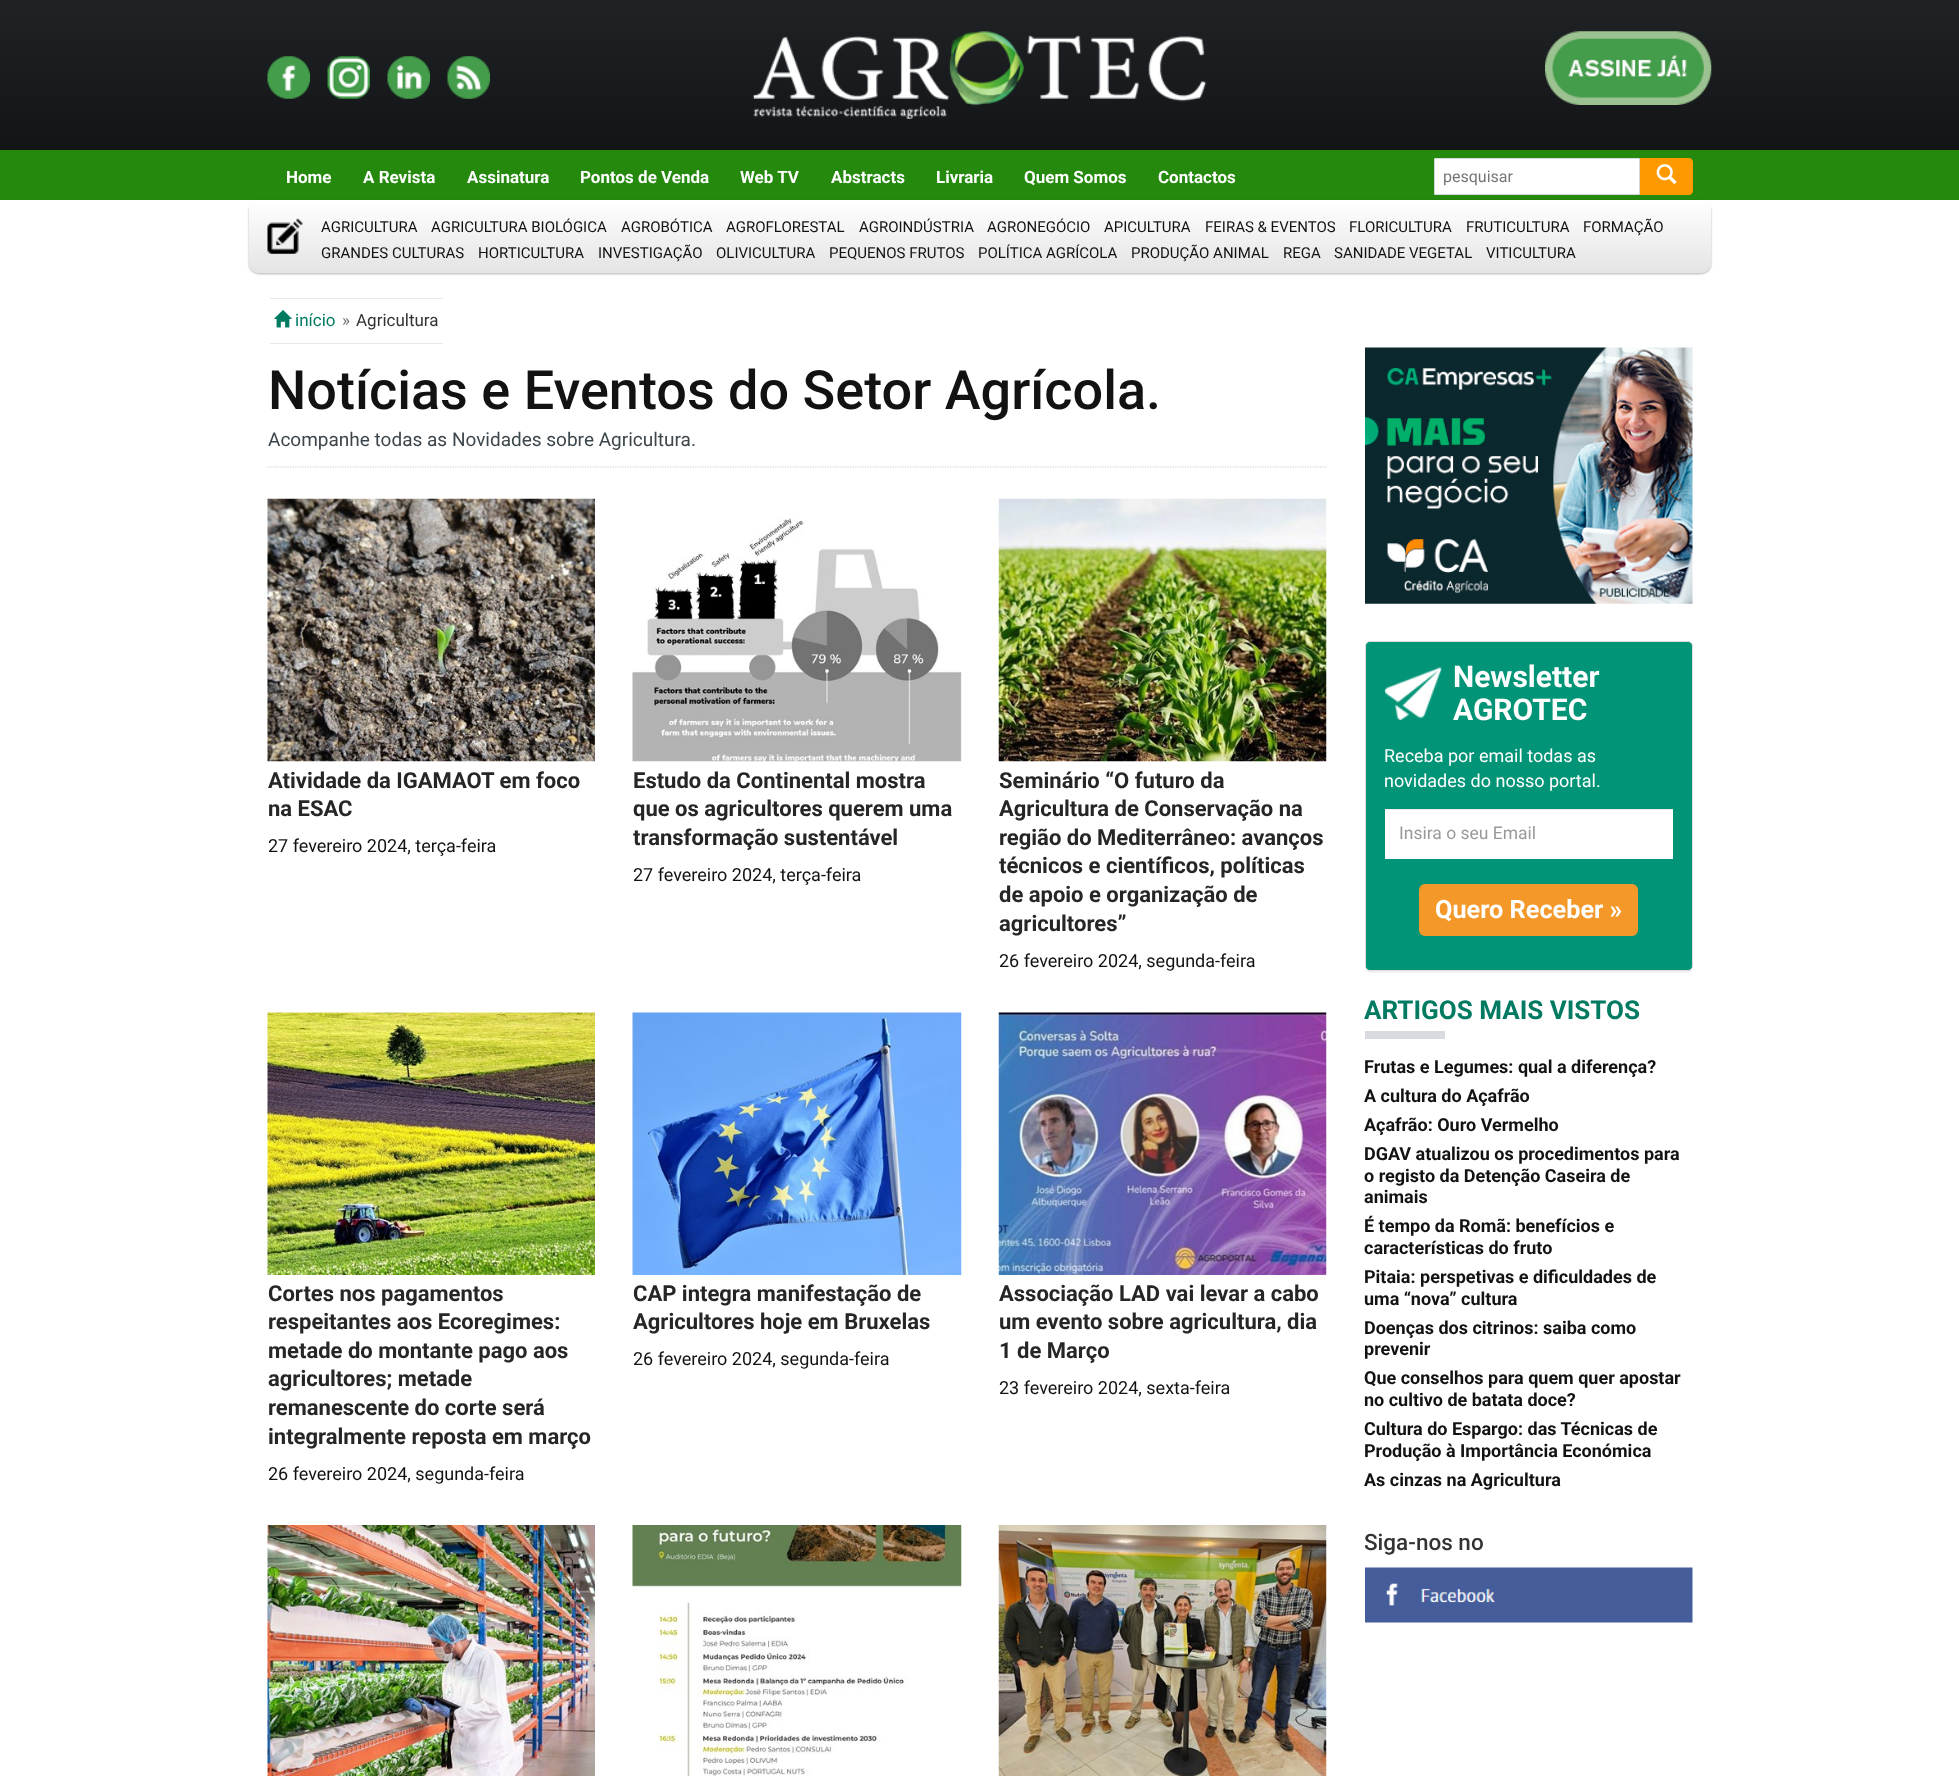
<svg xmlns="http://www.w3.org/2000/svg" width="1959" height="1776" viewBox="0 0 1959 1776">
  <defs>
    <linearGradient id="g1" gradientUnits="userSpaceOnUse" x1="980" y1="0" x2="980" y2="150"><stop offset="0" stop-color="#202326"/><stop offset="1" stop-color="#121416"/></linearGradient>
    <linearGradient id="g2" gradientUnits="userSpaceOnUse" x1="980" y1="200" x2="980" y2="273"><stop offset="0" stop-color="#fff"/><stop offset="1" stop-color="#e4e4e4"/></linearGradient>
  </defs>
  <rect width="100%" height="100%" fill="#fff"/>
  <path d="M0 0h1959v150H0z" fill="url(#g1)"/>
  <image x="267" y="56" width="43" height="43" href="img/1.png"/>
  <image x="327" y="56" width="43" height="43" href="img/2.png"/>
  <image x="387" y="56" width="43" height="43" href="img/3.png"/>
  <image x="447" y="56" width="43" height="43" href="img/4.png"/>
  <image x="753" y="31" width="454" height="88" href="img/5.png"/>
  <image x="1545" y="31" width="167" height="74" href="img/6.png"/>
  <path d="M0 150h1959v50H0z" fill="#24890d"/>
  <path d="M1434.5 158.5h205v36H1434.5z" fill="#fff" stroke="#d7d7db"/>
  <path d="M1640 158H1689C1691 158 1693 160 1693 162V191C1693 193 1691 195 1689 195H1640Z" fill="#f90"/>
  <image x="1656" y="164" width="21" height="20" href="img/7.png"/>
  <rect x="249" y="201" width="1462" height="73" rx="10" fill="#0000004d" filter="blur(1px)"/>
  <path d="M249 200H1711V263C1711 268.5 1706.5 273 1701 273H259C253.5 273 249 268.5 249 263Z" fill="url(#g2)"/>
  <image x="267" y="218" width="36" height="36" href="img/8.png"/>
  <path d="M270 298h173v1H270z" fill="#e9e9e9"/>
  <path d="M270 343h173v1H270z" fill="#e9e9e9"/>
  <image x="273" y="310" width="19" height="18" href="img/9.png"/>
  <path d="M267.5 467H1327.5" fill="none" stroke="#ccced2" stroke-width="1.2" stroke-dasharray="1.25 1.25"/>
  <image x="267" y="498" width="328" height="264" href="img/10.png"/>
  <image x="632" y="518" width="330" height="244" href="img/11.png"/>
  <image x="998" y="498" width="329" height="264" href="img/12.png"/>
  <image x="267" y="1012" width="328" height="263" href="img/13.png"/>
  <image x="632" y="1012" width="330" height="263" href="img/14.png"/>
  <image x="998" y="1012" width="329" height="263" href="img/15.png"/>
  <image x="267" y="1525" width="328" height="251" href="img/16.png"/>
  <image x="632" y="1525" width="330" height="251" href="img/17.png"/>
  <image x="998" y="1525" width="329" height="251" href="img/18.png"/>
  <image x="1365" y="347" width="328" height="257" href="img/19.png"/>
  <rect x="1365" y="643" width="328" height="330" rx="5" fill="#0000000d" filter="blur(0.5px)"/>
  <rect x="1365.5" y="641.5" width="327" height="329" rx="4.5" fill="#019476" stroke="#ddd"/>
  <image x="1385" y="667" width="57" height="53" href="img/20.png"/>
  <path d="M1385 810h288v49H1385z" fill="#fff"/>
  <path d="M1385 809h288v1H1385z" fill="#ececec"/>
  <rect x="1419" y="884" width="219" height="52" rx="6" fill="#f49929"/>
  <path d="M1365 1031h80v8H1365z" fill="#d8dbe0"/>
  <image x="1365" y="1567" width="328" height="56" href="img/21.png"/>
  <g font-family="Roboto" font-size="17" font-weight="bold" fill="#fff">
    <text x="286" y="183">Home</text>
    <text x="363" y="183">A Revista</text>
    <text x="467" y="183">Assinatura</text>
    <text x="580" y="183">Pontos de Venda</text>
    <text x="740" y="183">Web TV</text>
    <text x="831" y="183">Abstracts</text>
    <text x="936" y="183">Livraria</text>
    <text x="1024" y="183">Quem Somos</text>
    <text x="1158" y="183">Contactos</text>
  </g>
  <text x="1443" y="182" font-family="Roboto" font-size="16" fill="#757575">pesquisar</text>
  <g font-family="Roboto" font-size="15" fill="#121212">
    <text x="321" y="232">AGRICULTURA</text>
    <text x="431" y="232">AGRICULTURA BIOLÓGICA</text>
    <text x="621" y="232">AGROBÓTICA</text>
    <text x="726" y="232">AGROFLORESTAL</text>
    <text x="859" y="232">AGROINDÚSTRIA</text>
    <text x="987" y="232">AGRONEGÓCIO</text>
    <text x="1104" y="232">APICULTURA</text>
    <text x="1205" y="232">FEIRAS &amp; EVENTOS</text>
    <text x="1349" y="232">FLORICULTURA</text>
    <text x="1466" y="232">FRUTICULTURA</text>
    <text x="1583" y="232">FORMAÇÃO</text>
    <text x="321" y="258">GRANDES CULTURAS</text>
    <text x="478" y="258">HORTICULTURA</text>
    <text x="598" y="258">INVESTIGAÇÃO</text>
    <text x="716" y="258">OLIVICULTURA</text>
    <text x="829" y="258">PEQUENOS FRUTOS</text>
    <text x="978" y="258">POLÍTICA AGRÍCOLA</text>
    <text x="1131" y="258">PRODUÇÃO ANIMAL</text>
    <text x="1283" y="258">REGA</text>
    <text x="1334" y="258">SANIDADE VEGETAL</text>
    <text x="1486" y="258">VITICULTURA</text>
  </g>
  <text x="295" y="326" font-family="Roboto" font-size="17" fill="#017a62">início</text>
  <text x="342" y="326" font-family="Roboto" font-size="17" fill="#6e6e6e">»</text>
  <text x="356" y="326" font-family="Roboto" font-size="17" fill="#333">Agricultura</text>
  <text x="268" y="409" font-family="Roboto" font-size="54" font-weight="500" fill="#121212">Notícias e Eventos do Setor Agrícola.</text>
  <text x="268" y="446" font-family="Roboto" font-size="19" fill="#3c464d">Acompanhe todas as Novidades sobre Agricultura.</text>
  <g font-family="Roboto" font-size="22" font-weight="bold" fill="#262626">
    <text x="268" y="788">Atividade da IGAMAOT em foco</text>
    <text x="268" y="816">na ESAC</text>
  </g>
  <text x="268" y="852" font-family="Roboto" font-size="18" fill="#121212">27 fevereiro 2024, terça-feira</text>
  <g font-family="Roboto" font-size="22" font-weight="bold" fill="#262626">
    <text x="633" y="788">Estudo da Continental mostra</text>
    <text x="633" y="816">que os agricultores querem uma</text>
    <text x="633" y="845">transformação sustentável</text>
  </g>
  <text x="633" y="881" font-family="Roboto" font-size="18" fill="#121212">27 fevereiro 2024, terça-feira</text>
  <g font-family="Roboto" font-size="22" font-weight="bold" fill="#262626">
    <text x="999" y="788">Seminário “O futuro da</text>
    <text x="999" y="816">Agricultura de Conservação na</text>
    <text x="999" y="845">região do Mediterrâneo: avanços</text>
    <text x="999" y="873">técnicos e científicos, políticas</text>
    <text x="999" y="902">de apoio e organização de</text>
    <text x="999" y="931">agricultores”</text>
  </g>
  <text x="999" y="967" font-family="Roboto" font-size="18" fill="#121212">26 fevereiro 2024, segunda-feira</text>
  <g font-family="Roboto" font-size="22" font-weight="bold" fill="#262626">
    <text x="268" y="1301">Cortes nos pagamentos</text>
    <text x="268" y="1329">respeitantes aos Ecoregimes:</text>
    <text x="268" y="1358">metade do montante pago aos</text>
    <text x="268" y="1386">agricultores; metade</text>
    <text x="268" y="1415">remanescente do corte será</text>
    <text x="268" y="1444">integralmente reposta em março</text>
  </g>
  <text x="268" y="1480" font-family="Roboto" font-size="18" fill="#121212">26 fevereiro 2024, segunda-feira</text>
  <g font-family="Roboto" font-size="22" font-weight="bold" fill="#262626">
    <text x="633" y="1301">CAP integra manifestação de</text>
    <text x="633" y="1329">Agricultores hoje em Bruxelas</text>
  </g>
  <text x="633" y="1365" font-family="Roboto" font-size="18" fill="#121212">26 fevereiro 2024, segunda-feira</text>
  <g font-family="Roboto" font-size="22" font-weight="bold" fill="#262626">
    <text x="999" y="1301">Associação LAD vai levar a cabo</text>
    <text x="999" y="1329">um evento sobre agricultura, dia</text>
    <text x="999" y="1358">1 de Março</text>
  </g>
  <text x="999" y="1394" font-family="Roboto" font-size="18" fill="#121212">23 fevereiro 2024, sexta-feira</text>
  <g font-family="Roboto" font-size="30" font-weight="bold" fill="#fff">
    <text x="1453" y="687">Newsletter</text>
    <text x="1453" y="720">AGROTEC</text>
  </g>
  <g font-family="Roboto" font-size="18" fill="#fff">
    <text x="1384" y="762">Receba por email todas as</text>
    <text x="1384" y="787">novidades do nosso portal.</text>
  </g>
  <text x="1399" y="839" font-family="Roboto" font-size="17.5" fill="#999">Insira o seu Email</text>
  <text x="1435" y="918" font-family="Roboto" font-size="25.25" font-weight="bold" fill="#fff">Quero Receber »</text>
  <text x="1364" y="1019" font-family="Roboto" font-size="26" font-weight="bold" fill="#017a62">ARTIGOS MAIS VISTOS</text>
  <g font-family="Roboto" font-size="18" font-weight="bold" fill="#121212">
    <text x="1364" y="1073">Frutas e Legumes: qual a diferença?</text>
    <text x="1364" y="1102">A cultura do Açafrão</text>
    <text x="1364" y="1131">Açafrão: Ouro Vermelho</text>
    <text x="1364" y="1160">DGAV atualizou os procedimentos para</text>
    <text x="1364" y="1182">o registo da Detenção Caseira de</text>
    <text x="1364" y="1203">animais</text>
    <text x="1364" y="1232">É tempo da Romã: benefícios e</text>
    <text x="1364" y="1254">características do fruto</text>
    <text x="1364" y="1283">Pitaia: perspetivas e dificuldades de</text>
    <text x="1364" y="1305">uma “nova” cultura</text>
    <text x="1364" y="1334">Doenças dos citrinos: saiba como</text>
    <text x="1364" y="1355">prevenir</text>
    <text x="1364" y="1384">Que conselhos para quem quer apostar</text>
    <text x="1364" y="1406">no cultivo de batata doce?</text>
    <text x="1364" y="1435">Cultura do Espargo: das Técnicas de</text>
    <text x="1364" y="1457">Produção à Importância Económica</text>
    <text x="1364" y="1486">As cinzas na Agricultura</text>
  </g>
  <text x="1364" y="1550" font-family="Roboto" font-size="22.5" font-weight="500" fill="#333">Siga-nos no</text>
</svg>
